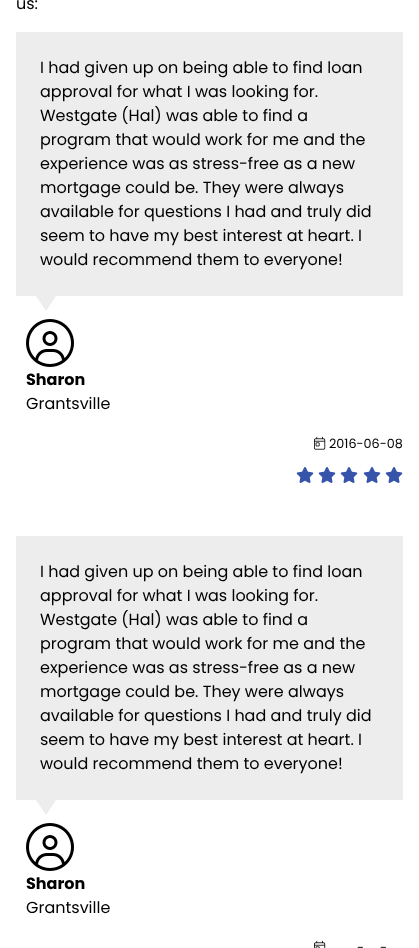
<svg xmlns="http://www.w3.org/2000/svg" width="419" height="948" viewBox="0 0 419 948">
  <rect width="100%" height="100%" fill="#fff"/>
  <path d="M16 32h387v264H16z" fill="#ededed"/>
  <path d="M36 296H56L46 311Z" fill="#ededed"/>
  <image x="26" y="319" width="48" height="48" href="img/1.png"/>
  <image x="314" y="436" width="12" height="14" href="img/2.png"/>
  <image x="296" y="467" width="18" height="16" href="img/3.png"/>
  <image x="318" y="467" width="18" height="16" href="img/3.png"/>
  <image x="340" y="467" width="18" height="16" href="img/3.png"/>
  <image x="363" y="467" width="18" height="16" href="img/3.png"/>
  <image x="385" y="467" width="18" height="16" href="img/3.png"/>
  <path d="M16 536h387v264H16z" fill="#ededed"/>
  <path d="M36 800H56L46 815Z" fill="#ededed"/>
  <image x="26" y="823" width="48" height="48" href="img/1.png"/>
  <image x="314" y="940" width="12" height="8" href="img/4.png"/>
  <g font-family="Poppins" font-size="16" fill="#000">
    <text x="16" y="9">us:</text>
    <text x="40" y="73">I had given up on being able to find loan</text>
    <text x="40" y="97">approval for what I was looking for.</text>
    <text x="40" y="121">Westgate (Hal) was able to find a</text>
    <text x="40" y="145">program that would work for me and the</text>
    <text x="40" y="169">experience was as stress-free as a new</text>
    <text x="40" y="193">mortgage could be. They were always</text>
    <text x="40" y="217">available for questions I had and truly did</text>
    <text x="40" y="241">seem to have my best interest at heart. I</text>
    <text x="40" y="265">would recommend them to everyone!</text>
  </g>
  <text x="26" y="385" font-family="Poppins" font-size="16" font-weight="bold" fill="#000">Sharon</text>
  <text x="26" y="409" font-family="Poppins" font-size="16" fill="#000">Grantsville</text>
  <text x="329" y="448" font-family="Poppins" font-size="12.75" fill="#000">2016-06-08</text>
  <g font-family="Poppins" font-size="16" fill="#000">
    <text x="40" y="577">I had given up on being able to find loan</text>
    <text x="40" y="601">approval for what I was looking for.</text>
    <text x="40" y="625">Westgate (Hal) was able to find a</text>
    <text x="40" y="649">program that would work for me and the</text>
    <text x="40" y="673">experience was as stress-free as a new</text>
    <text x="40" y="697">mortgage could be. They were always</text>
    <text x="40" y="721">available for questions I had and truly did</text>
    <text x="40" y="745">seem to have my best interest at heart. I</text>
    <text x="40" y="769">would recommend them to everyone!</text>
  </g>
  <text x="26" y="889" font-family="Poppins" font-size="16" font-weight="bold" fill="#000">Sharon</text>
  <text x="26" y="913" font-family="Poppins" font-size="16" fill="#000">Grantsville</text>
  <g font-family="Poppins" font-size="12.75" fill="#000">
    <text x="357" y="952">-</text>
    <text x="380" y="952">-</text>
  </g>
</svg>
